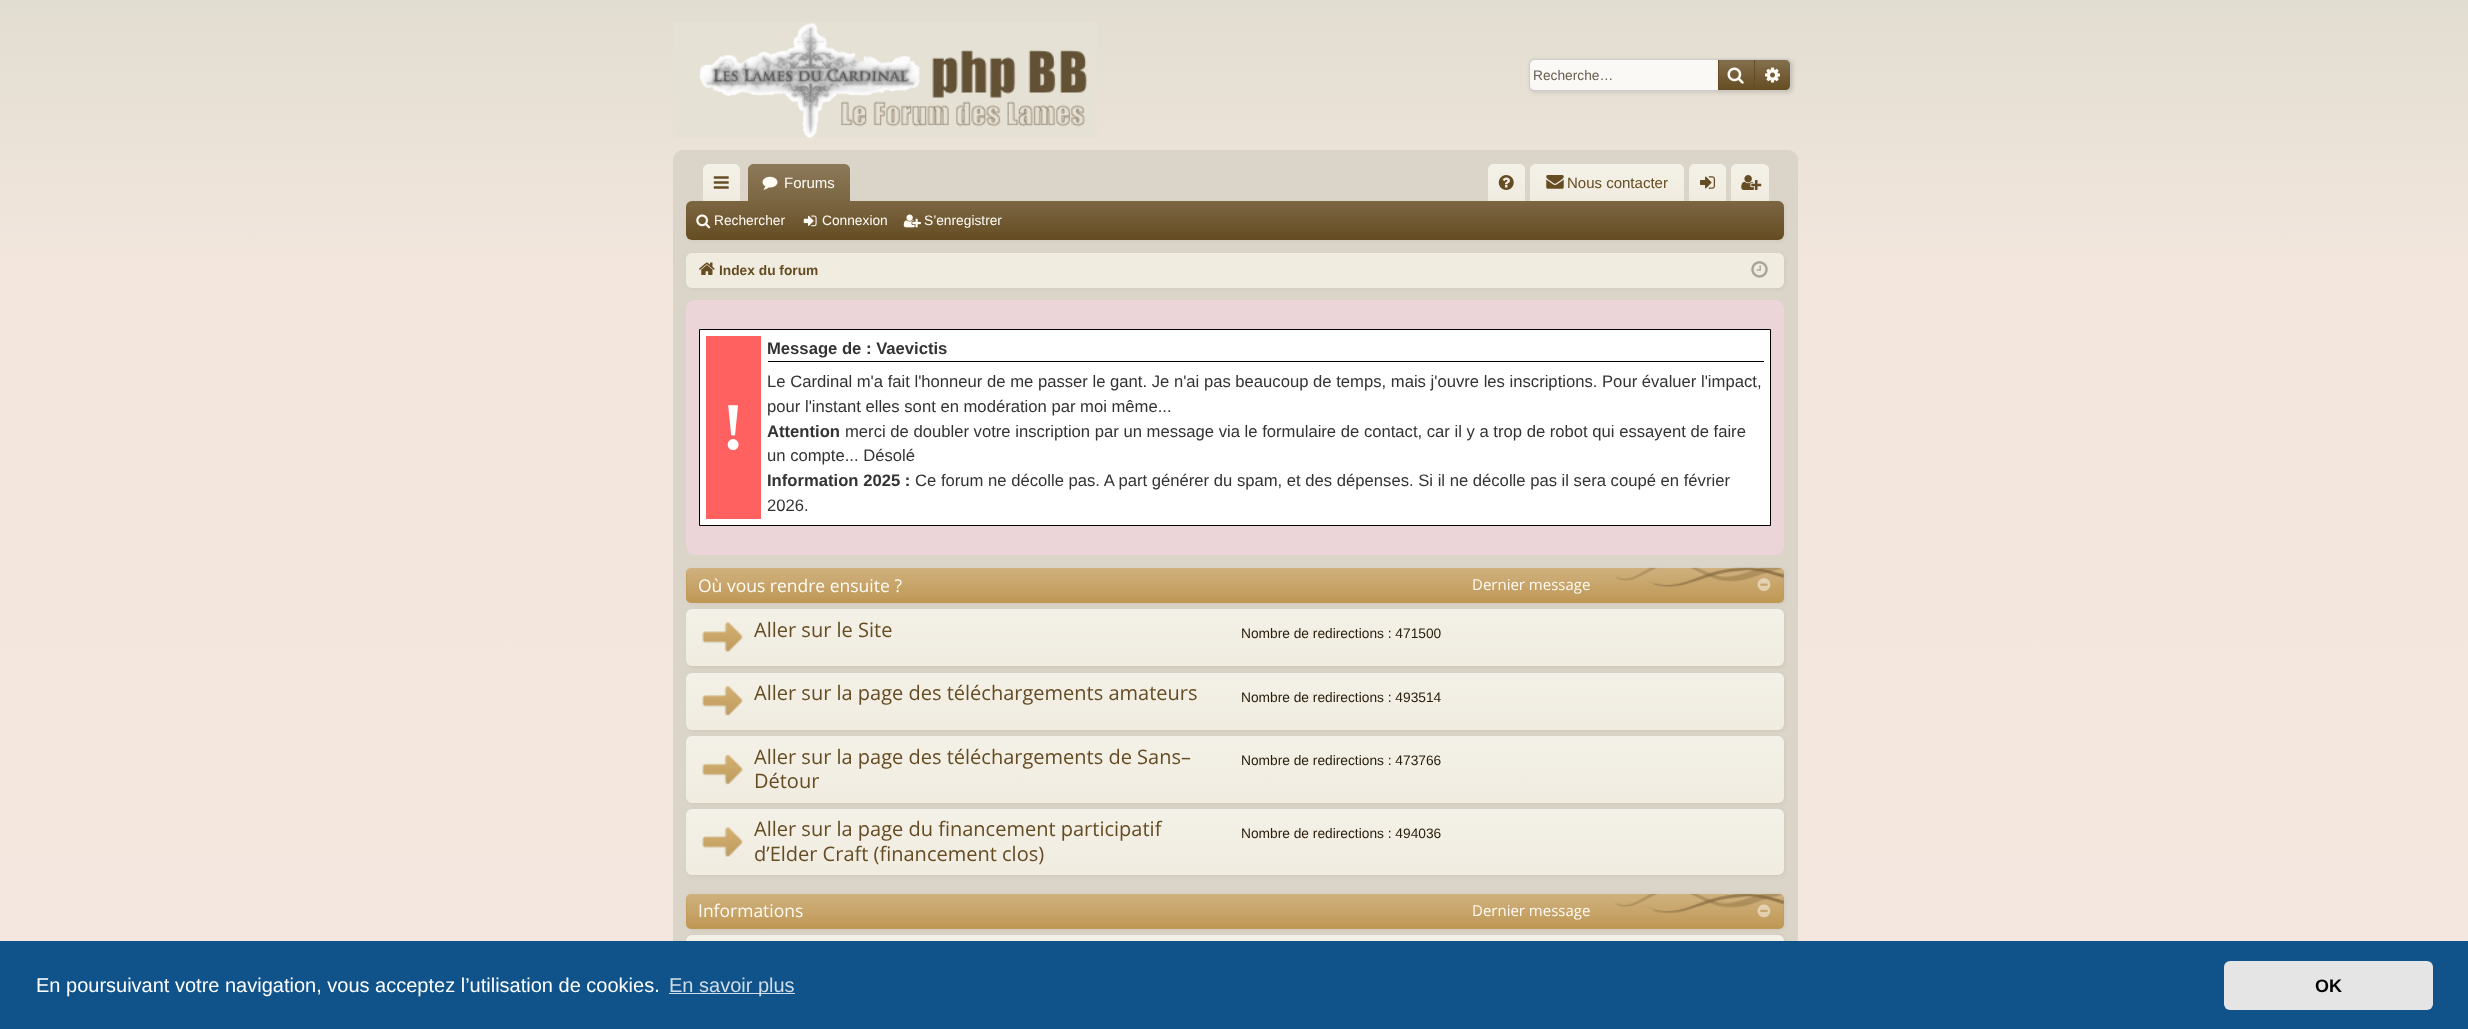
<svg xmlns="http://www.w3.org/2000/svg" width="2468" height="1029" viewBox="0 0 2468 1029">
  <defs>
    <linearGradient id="g1" gradientUnits="userSpaceOnUse" x1="1234" y1="0" x2="1234" y2="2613"><stop offset="0" stop-color="#e2ddd1"/><stop offset="0.1" stop-color="#f2e6dd"/><stop offset="1" stop-color="#f9e9e2"/></linearGradient>
    <linearGradient id="g2" gradientUnits="userSpaceOnUse" x1="1736" y1="60" x2="1736" y2="90"><stop offset="0" stop-color="#84704e"/><stop offset="1" stop-color="#654c22"/></linearGradient>
    <linearGradient id="g3" gradientUnits="userSpaceOnUse" x1="1773" y1="60" x2="1773" y2="90"><stop offset="0" stop-color="#fff" stop-opacity="0.2"/><stop offset="1" stop-color="#fff" stop-opacity="0"/></linearGradient>
    <linearGradient id="g4" gradientUnits="userSpaceOnUse" x1="721" y1="164" x2="721" y2="201"><stop offset="0" stop-color="#fff" stop-opacity="0.25"/><stop offset="1" stop-color="#fff" stop-opacity="0"/></linearGradient>
    <linearGradient id="g5" gradientUnits="userSpaceOnUse" x1="799" y1="164" x2="799" y2="201"><stop offset="0" stop-color="#fff" stop-opacity="0.25"/><stop offset="1" stop-color="#fff" stop-opacity="0.15"/></linearGradient>
    <linearGradient id="g6" gradientUnits="userSpaceOnUse" x1="1506" y1="164" x2="1506" y2="201"><stop offset="0" stop-color="#fff" stop-opacity="0.25"/><stop offset="1" stop-color="#fff" stop-opacity="0"/></linearGradient>
    <linearGradient id="g7" gradientUnits="userSpaceOnUse" x1="1607" y1="164" x2="1607" y2="201"><stop offset="0" stop-color="#fff" stop-opacity="0.25"/><stop offset="1" stop-color="#fff" stop-opacity="0"/></linearGradient>
    <linearGradient id="g8" gradientUnits="userSpaceOnUse" x1="1708" y1="164" x2="1708" y2="201"><stop offset="0" stop-color="#fff" stop-opacity="0.25"/><stop offset="1" stop-color="#fff" stop-opacity="0"/></linearGradient>
    <linearGradient id="g9" gradientUnits="userSpaceOnUse" x1="1750" y1="164" x2="1750" y2="201"><stop offset="0" stop-color="#fff" stop-opacity="0.25"/><stop offset="1" stop-color="#fff" stop-opacity="0"/></linearGradient>
    <linearGradient id="g10" gradientUnits="userSpaceOnUse" x1="1235" y1="201" x2="1235" y2="240"><stop offset="0" stop-color="#fff" stop-opacity="0.15"/><stop offset="1" stop-color="#fff" stop-opacity="0"/></linearGradient>
    <linearGradient id="g11" gradientUnits="userSpaceOnUse" x1="1235" y1="609" x2="1235" y2="666"><stop offset="0" stop-color="#fff" stop-opacity="0.25"/><stop offset="1" stop-color="#fff" stop-opacity="0"/></linearGradient>
    <linearGradient id="g12" gradientUnits="userSpaceOnUse" x1="1235" y1="673" x2="1235" y2="730"><stop offset="0" stop-color="#fff" stop-opacity="0.25"/><stop offset="1" stop-color="#fff" stop-opacity="0"/></linearGradient>
    <linearGradient id="g13" gradientUnits="userSpaceOnUse" x1="1235" y1="736" x2="1235" y2="803"><stop offset="0" stop-color="#fff" stop-opacity="0.25"/><stop offset="1" stop-color="#fff" stop-opacity="0"/></linearGradient>
    <linearGradient id="g14" gradientUnits="userSpaceOnUse" x1="1235" y1="809" x2="1235" y2="875"><stop offset="0" stop-color="#fff" stop-opacity="0.25"/><stop offset="1" stop-color="#fff" stop-opacity="0"/></linearGradient>
    <linearGradient id="g15" gradientUnits="userSpaceOnUse" x1="1235" y1="935" x2="1235" y2="1008"><stop offset="0" stop-color="#fff" stop-opacity="0.25"/><stop offset="1" stop-color="#fff" stop-opacity="0"/></linearGradient>
  </defs>
  <rect width="100%" height="100%" fill="#fff"/>
  <path d="M0 0h2468v941H0z" fill="url(#g1)"/>
  <image x="673" y="22" width="424" height="116" href="img/1.png"/>
  <rect x="1530" y="60" width="263" height="33" rx="5" fill="#0000001a" filter="blur(2px)"/>
  <rect x="1529.5" y="59.5" width="261" height="31" rx="4.5" fill="none" stroke="#ccc"/>
  <path d="M1535 60H1718V90H1535C1532 90 1530 88 1530 85V65C1530 62 1532 60 1535 60Z" fill="#fbf9f6"/>
  <path d="M1719 61h37v30H1719z" fill="#654c221a" filter="blur(2px)"/>
  <path d="M1719 60h35v30H1719z" fill="url(#g2)"/>
  <path d="M1754 60h1v30H1754z" fill="#654c22"/>
  <path d="M1718 60h1v30H1718z" fill="#654c22"/>
  <image x="1727" y="67" width="17" height="17" href="img/2.png"/>
  <rect x="1756" y="61" width="35" height="30" rx="5" fill="#654c221a" filter="blur(2px)"/>
  <path d="M1755 60H1785C1788 60 1790 62 1790 65V85C1790 88 1788 90 1785 90H1755Z" fill="#654c22"/>
  <path d="M1755 60H1785C1788 60 1790 62 1790 65V85C1790 88 1788 90 1785 90H1755Z" fill="url(#g3)"/>
  <image x="1765" y="67" width="15" height="16" href="img/3.png"/>
  <rect x="673.5" y="150.5" width="1124" height="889" rx="9.5" fill="#dbd5c9" stroke="#dbd5c9"/>
  <path d="M709 164H734C737.5 164 740 166.5 740 170V201H703V170C703 166.5 705.5 164 709 164Z" fill="#f0ece0"/>
  <path d="M709 164H734C737.5 164 740 166.5 740 170V201H703V170C703 166.5 705.5 164 709 164Z" fill="url(#g4)"/>
  <image x="713" y="176" width="16" height="13" href="img/4.png"/>
  <path d="M754 164H844C847.5 164 850 166.5 850 170V201H748V170C748 166.5 750.5 164 754 164Z" fill="#654c22"/>
  <path d="M754 164H844C847.5 164 850 166.5 850 170V201H748V170C748 166.5 750.5 164 754 164Z" fill="url(#g5)"/>
  <image x="762" y="176" width="16" height="14" href="img/5.png"/>
  <path d="M1494 164H1519C1522.5 164 1525 166.5 1525 170V201H1488V170C1488 166.5 1490.5 164 1494 164Z" fill="#f0ece0"/>
  <path d="M1494 164H1519C1522.5 164 1525 166.5 1525 170V201H1488V170C1488 166.5 1490.5 164 1494 164Z" fill="url(#g6)"/>
  <path d="M1536 164H1678C1681.5 164 1684 166.5 1684 170V201H1530V170C1530 166.5 1532.5 164 1536 164Z" fill="#f0ece0"/>
  <path d="M1536 164H1678C1681.5 164 1684 166.5 1684 170V201H1530V170C1530 166.5 1532.5 164 1536 164Z" fill="url(#g7)"/>
  <path d="M1695 164H1720C1723.5 164 1726 166.5 1726 170V201H1689V170C1689 166.5 1691.5 164 1695 164Z" fill="#f0ece0"/>
  <path d="M1695 164H1720C1723.5 164 1726 166.5 1726 170V201H1689V170C1689 166.5 1691.5 164 1695 164Z" fill="url(#g8)"/>
  <path d="M1737 164H1763C1766.5 164 1769 166.5 1769 170V201H1731V170C1731 166.5 1733.5 164 1737 164Z" fill="#f0ece0"/>
  <path d="M1737 164H1763C1766.5 164 1769 166.5 1769 170V201H1731V170C1731 166.5 1733.5 164 1737 164Z" fill="url(#g9)"/>
  <rect x="688" y="203" width="1097" height="38" rx="6" fill="#654c221a" filter="blur(2px)"/>
  <rect x="686" y="201" width="1098" height="39" rx="6" fill="#654c22"/>
  <rect x="686" y="201" width="1098" height="39" rx="6" fill="url(#g10)"/>
  <path d="M750.5 200H847.5C849 200 850 201 850 202.5V203H748V202.5C748 201 749 200 750.5 200Z" fill="#654c22"/>
  <path d="M750.5 200H847.5C849 200 850 201 850 202.5V203H748V202.5C748 201 749 200 750.5 200Z" fill="#ffffff26"/>
  <image x="1498" y="175" width="16" height="15" href="img/6.png"/>
  <image x="1546" y="175" width="18" height="14" href="img/7.png"/>
  <image x="1700" y="176" width="15" height="13" href="img/8.png"/>
  <image x="1741" y="175" width="21" height="15" href="img/9.png"/>
  <image x="696" y="214" width="15" height="15" href="img/10.png"/>
  <image x="803" y="215" width="14" height="12" href="img/11.png"/>
  <image x="903" y="214" width="18" height="14" href="img/12.png"/>
  <rect x="688" y="254" width="1097" height="35" rx="6" fill="#654c221a" filter="blur(2px)"/>
  <rect x="686" y="253" width="1098" height="35" rx="6" fill="#f0ece0"/>
  <image x="699" y="262" width="16" height="13" href="img/13.png"/>
  <image x="1751" y="261" width="17" height="17" href="img/14.png"/>
  <rect x="686" y="300" width="1098" height="255" rx="9" fill="#ecd5d8"/>
  <path d="M699.5 329.5h1071v196H699.5z" fill="#fff" stroke="#000"/>
  <path d="M768 361h996v1H768z" fill="#000"/>
  <path d="M706 336h55v183H706z" fill="#ff6060"/>
  <rect x="688" y="610" width="1097" height="58" rx="6" fill="#654c221a" filter="blur(2px)"/>
  <rect x="686" y="609" width="1098" height="57" rx="6" fill="#f0ece0"/>
  <rect x="686" y="609" width="1098" height="57" rx="6" fill="url(#g11)"/>
  <rect x="688" y="569" width="1097" height="35" rx="5" fill="#654c221a" filter="blur(2px)"/>
  <rect x="686" y="568" width="1098" height="35" rx="5" fill="#c09855"/>
  <image x="686" y="567" width="1098" height="32" href="img/15.png"/>
  <image x="1757" y="578" width="14" height="13" href="img/16.png"/>
  <image x="702" y="622" width="41" height="30" href="img/17.png"/>
  <rect x="688" y="674" width="1097" height="57" rx="6" fill="#654c221a" filter="blur(2px)"/>
  <rect x="686" y="673" width="1098" height="57" rx="6" fill="#f0ece0"/>
  <rect x="686" y="673" width="1098" height="57" rx="6" fill="url(#g12)"/>
  <image x="702" y="686" width="41" height="30" href="img/18.png"/>
  <rect x="688" y="738" width="1097" height="66" rx="6" fill="#654c221a" filter="blur(2px)"/>
  <rect x="686" y="736" width="1098" height="67" rx="6" fill="#f0ece0"/>
  <rect x="686" y="736" width="1098" height="67" rx="6" fill="url(#g13)"/>
  <image x="702" y="754" width="41" height="31" href="img/19.png"/>
  <rect x="688" y="810" width="1097" height="66" rx="6" fill="#654c221a" filter="blur(2px)"/>
  <rect x="686" y="809" width="1098" height="66" rx="6" fill="#f0ece0"/>
  <rect x="686" y="809" width="1098" height="66" rx="6" fill="url(#g14)"/>
  <image x="702" y="827" width="41" height="30" href="img/20.png"/>
  <rect x="688" y="936" width="1097" height="73" rx="6" fill="#654c221a" filter="blur(2px)"/>
  <rect x="686" y="935" width="1098" height="73" rx="6" fill="#f0ece0"/>
  <rect x="686" y="935" width="1098" height="73" rx="6" fill="url(#g15)"/>
  <rect x="688" y="895" width="1097" height="35" rx="5" fill="#654c221a" filter="blur(2px)"/>
  <rect x="686" y="894" width="1098" height="35" rx="5" fill="#c09855"/>
  <image x="686" y="893" width="1098" height="32" href="img/21.png"/>
  <image x="1757" y="904" width="14" height="14" href="img/22.png"/>
  <path d="M0 941h2468v88H0z" fill="#0f538a"/>
  <path d="M669 993h126v1H669z" fill="#cfdde8"/>
  <rect x="2224" y="961" width="209" height="49" rx="6" fill="#e5e5e5"/>
  <text x="1533" y="80" font-family="Liberation Sans" font-size="13.75" fill="#675e4f">Recherche…</text>
  <text x="784" y="188" font-family="Liberation Sans" font-size="15" fill="#fefbf5">Forums</text>
  <text x="1567" y="188" font-family="Liberation Sans" font-size="15" fill="#654c22">Nous contacter</text>
  <g font-family="Liberation Sans" font-size="13.75" fill="#fefbf5">
    <text x="714" y="225">Rechercher</text>
    <text x="822" y="225">Connexion</text>
    <text x="924" y="225">S’enregistrer</text>
  </g>
  <text x="719" y="275" font-family="Liberation Sans" font-size="13.75" font-weight="bold" fill="#654c22">Index du forum</text>
  <text x="767" y="354" font-family="Liberation Sans" font-size="16.65" font-weight="bold" fill="#333">Message de : Vaevictis</text>
  <text x="722" y="449" font-family="Liberation Serif" font-size="67" font-weight="bold" fill="#fff">!</text>
  <g font-family="Liberation Sans" font-size="16.65" fill="#333">
    <text x="767" y="387">Le Cardinal m'a fait l'honneur de me passer le gant. Je n'ai pas beaucoup de temps, mais j'ouvre les inscriptions. Pour évaluer l'impact,</text>
    <text x="767" y="412">pour l'instant elles sont en modération par moi même...</text>
  </g>
  <text x="767" y="437" font-family="Liberation Sans" font-size="16.65" font-weight="bold" fill="#333">Attention</text>
  <g font-family="Liberation Sans" font-size="16.65" fill="#333">
    <text x="845" y="437">merci de doubler votre inscription par un message via le formulaire de contact, car il y a trop de robot qui essayent de faire</text>
    <text x="767" y="461">un compte... Désolé</text>
  </g>
  <text x="767" y="486" font-family="Liberation Sans" font-size="16.65" font-weight="bold" fill="#333">Information 2025 :</text>
  <g font-family="Liberation Sans" font-size="16.65" fill="#333">
    <text x="915" y="486">Ce forum ne décolle pas. A part générer du spam, et des dépenses. Si il ne décolle pas il sera coupé en février</text>
    <text x="767" y="511">2026.</text>
  </g>
  <text x="698" y="592" font-family="Open Sans" font-size="17.5" fill="#fefbf5">Où vous rendre ensuite ?</text>
  <text x="1472" y="590" font-family="Open Sans" font-size="15" fill="#fefbf5">Dernier message</text>
  <text x="754" y="637" font-family="Open Sans" font-size="20" fill="#654c22">Aller sur le Site</text>
  <text x="1241" y="638" font-family="Liberation Sans" font-size="13.75" fill="#271b08">Nombre de redirections : 471500</text>
  <text x="754" y="700" font-family="Open Sans" font-size="20" fill="#654c22">Aller sur la page des téléchargements amateurs</text>
  <text x="1241" y="702" font-family="Liberation Sans" font-size="13.75" fill="#271b08">Nombre de redirections : 493514</text>
  <g font-family="Open Sans" font-size="20" fill="#654c22">
    <text x="754" y="764">Aller sur la page des téléchargements de Sans–</text>
    <text x="754" y="788">Détour</text>
  </g>
  <text x="1241" y="765" font-family="Liberation Sans" font-size="13.75" fill="#271b08">Nombre de redirections : 473766</text>
  <g font-family="Open Sans" font-size="20" fill="#654c22">
    <text x="754" y="836">Aller sur la page du financement participatif</text>
    <text x="754" y="861">d’Elder Craft (financement clos)</text>
  </g>
  <text x="1241" y="838" font-family="Liberation Sans" font-size="13.75" fill="#271b08">Nombre de redirections : 494036</text>
  <text x="698" y="917" font-family="Open Sans" font-size="17.5" fill="#fefbf5">Informations</text>
  <text x="1472" y="916" font-family="Open Sans" font-size="15" fill="#fefbf5">Dernier message</text>
  <text x="36" y="992" font-family="Liberation Sans" font-size="20" fill="#fff">En poursuivant votre navigation, vous acceptez l’utilisation de cookies.</text>
  <text x="669" y="992" font-family="Liberation Sans" font-size="20" fill="#cfdde8">En savoir plus</text>
  <text x="2315" y="992" font-family="Liberation Sans" font-size="18" font-weight="bold" fill="#000">OK</text>
</svg>
